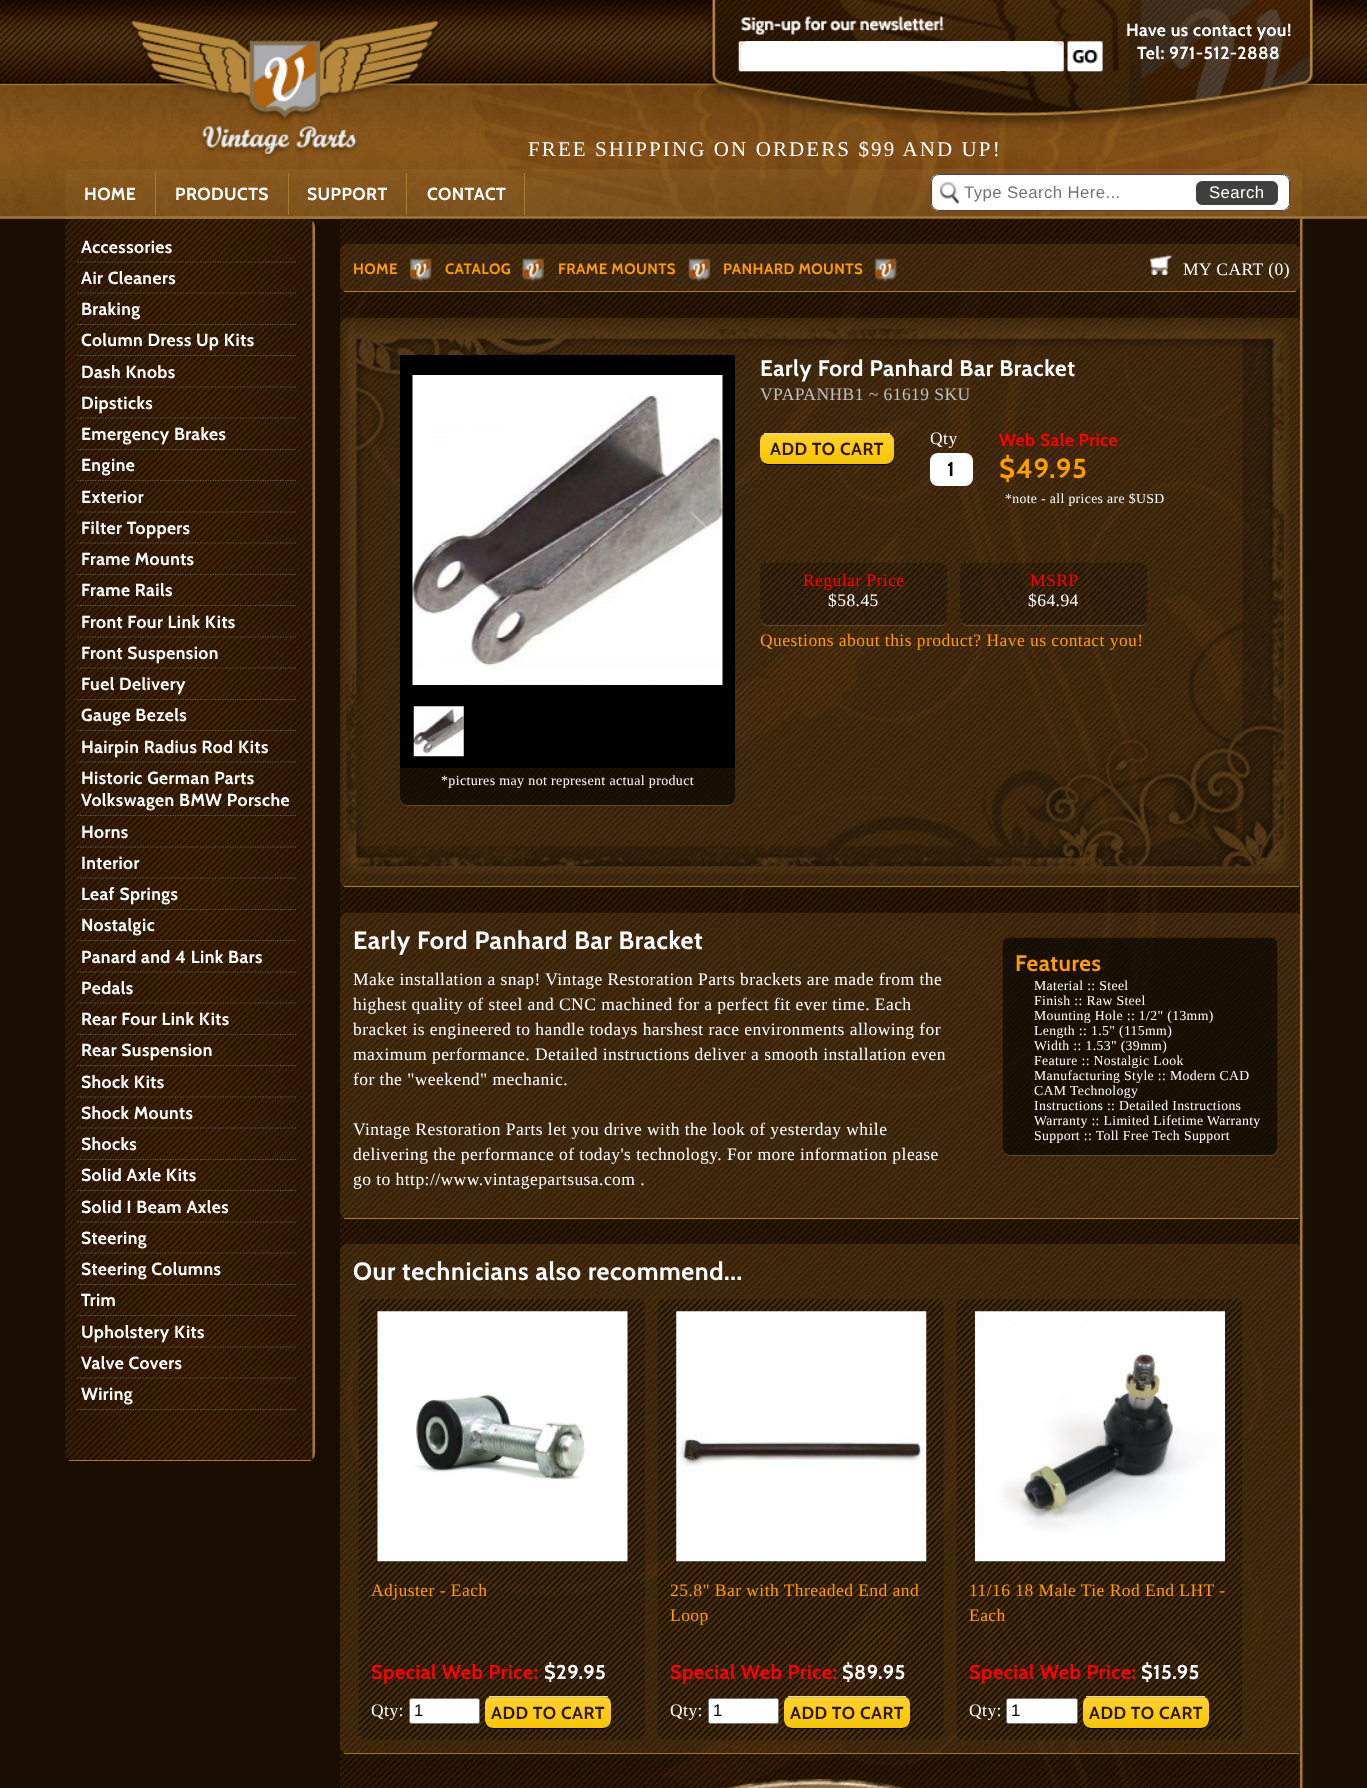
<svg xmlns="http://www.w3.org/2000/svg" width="1367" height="1788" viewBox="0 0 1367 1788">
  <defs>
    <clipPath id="clip1"><rect x="760" y="433" width="134" height="31" rx="8"/></clipPath>
    <linearGradient id="g1" gradientUnits="userSpaceOnUse" x1="760" y1="434" x2="760" y2="464"><stop offset="0" stop-color="#ffd22f"/><stop offset="1" stop-color="#f7c500"/></linearGradient>
    <clipPath id="clip2"><path d="M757 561H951V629H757ZM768 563H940C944.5 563 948 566.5 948 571V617C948 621.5 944.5 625 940 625H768C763.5 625 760 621.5 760 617V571C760 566.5 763.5 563 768 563Z" clip-rule="evenodd"/></clipPath>
    <clipPath id="clip3"><path d="M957 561H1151V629H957ZM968 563H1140C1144.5 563 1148 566.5 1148 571V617C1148 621.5 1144.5 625 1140 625H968C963.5 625 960 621.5 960 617V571C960 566.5 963.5 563 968 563Z" clip-rule="evenodd"/></clipPath>
    <clipPath id="clip4"><path d="M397 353H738V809H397ZM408 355H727C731.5 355 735 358.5 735 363V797C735 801.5 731.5 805 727 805H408C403.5 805 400 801.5 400 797V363C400 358.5 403.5 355 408 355Z" clip-rule="evenodd"/></clipPath>
    <clipPath id="clip5"><path d="M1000 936H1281V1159H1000ZM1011 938H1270C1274.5 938 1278 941.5 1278 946V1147C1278 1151.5 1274.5 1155 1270 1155H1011C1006.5 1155 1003 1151.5 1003 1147V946C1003 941.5 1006.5 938 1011 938Z" clip-rule="evenodd"/></clipPath>
    <clipPath id="clip6"><rect x="485" y="1696" width="126" height="32" rx="8"/></clipPath>
    <linearGradient id="g2" gradientUnits="userSpaceOnUse" x1="485" y1="1668" x2="485" y2="1698"><stop offset="0" stop-color="#ffd22f"/><stop offset="1" stop-color="#f7c500"/></linearGradient>
    <linearGradient id="g3" gradientUnits="userSpaceOnUse" x1="485" y1="1698" x2="485" y2="1728"><stop offset="0" stop-color="#ffd22f"/><stop offset="1" stop-color="#f7c500"/></linearGradient>
    <clipPath id="clip7"><rect x="784" y="1696" width="126" height="32" rx="8"/></clipPath>
    <linearGradient id="g4" gradientUnits="userSpaceOnUse" x1="784" y1="1668" x2="784" y2="1698"><stop offset="0" stop-color="#ffd22f"/><stop offset="1" stop-color="#f7c500"/></linearGradient>
    <linearGradient id="g5" gradientUnits="userSpaceOnUse" x1="784" y1="1698" x2="784" y2="1728"><stop offset="0" stop-color="#ffd22f"/><stop offset="1" stop-color="#f7c500"/></linearGradient>
    <clipPath id="clip8"><rect x="1083" y="1696" width="126" height="32" rx="8"/></clipPath>
    <linearGradient id="g6" gradientUnits="userSpaceOnUse" x1="1083" y1="1668" x2="1083" y2="1698"><stop offset="0" stop-color="#ffd22f"/><stop offset="1" stop-color="#f7c500"/></linearGradient>
    <linearGradient id="g7" gradientUnits="userSpaceOnUse" x1="1083" y1="1698" x2="1083" y2="1728"><stop offset="0" stop-color="#ffd22f"/><stop offset="1" stop-color="#f7c500"/></linearGradient>
  </defs>
  <rect width="100%" height="100%" fill="#190e01"/>
  <image x="0" y="0" width="1367" height="219" href="img/1.png"/>
  <image x="65" y="83" width="1238" height="136" href="img/2.png"/>
  <image x="130" y="21" width="310" height="139" href="img/3.png"/>
  <image x="707" y="0" width="611" height="128" href="img/4.png"/>
  <image x="738" y="16" width="365" height="56" href="img/5.png"/>
  <rect x="741" y="41" width="318" height="30" rx="8" fill="#fff"/>
  <image x="65" y="218" width="250" height="1243" href="img/9.png"/>
  <image x="340" y="218" width="963" height="1570" href="img/10.png"/>
  <image x="65" y="169" width="1237" height="50" href="img/6.png"/>
  <path d="M155 173h1v42H155z" fill="#a97a36"/>
  <path d="M288 173h1v42H288z" fill="#a97a36"/>
  <path d="M406 173h1v42H406z" fill="#a97a36"/>
  <path d="M524 173h1v42H524z" fill="#a97a36"/>
  <rect x="931" y="174" width="359" height="37" rx="8" fill="#fff"/>
  <image x="939" y="181" width="21" height="23" href="img/7.png"/>
  <rect x="931.5" y="174.5" width="358" height="36" rx="7.5" fill="none" stroke="#444"/>
  <rect x="1196.5" y="181.5" width="81" height="23" rx="5.5" fill="#3f403d" stroke="#444"/>
  <image x="340" y="244" width="960" height="49" href="img/11.png"/>
  <image x="1150" y="255" width="23" height="20" href="img/8.png"/>
  <path d="M69 1460h242v1H69z" fill="#a97a36"/>
  <path d="M77.5 262H296" fill="none" stroke="#5f5f5f" stroke-width="1.2" stroke-dasharray="1.25 1.25"/>
  <path d="M77.5 293H296" fill="none" stroke="#5f5f5f" stroke-width="1.2" stroke-dasharray="1.25 1.25"/>
  <path d="M77.5 324.5H296" fill="none" stroke="#5f5f5f" stroke-width="1.2" stroke-dasharray="1.25 1.25"/>
  <path d="M77.5 355.5H296" fill="none" stroke="#5f5f5f" stroke-width="1.2" stroke-dasharray="1.25 1.25"/>
  <path d="M77.5 387H296" fill="none" stroke="#5f5f5f" stroke-width="1.2" stroke-dasharray="1.25 1.25"/>
  <path d="M77.5 418H296" fill="none" stroke="#5f5f5f" stroke-width="1.2" stroke-dasharray="1.25 1.25"/>
  <path d="M77.5 449.5H296" fill="none" stroke="#5f5f5f" stroke-width="1.2" stroke-dasharray="1.25 1.25"/>
  <path d="M77.5 480.5H296" fill="none" stroke="#5f5f5f" stroke-width="1.2" stroke-dasharray="1.25 1.25"/>
  <path d="M77.5 512H296" fill="none" stroke="#5f5f5f" stroke-width="1.2" stroke-dasharray="1.25 1.25"/>
  <path d="M77.5 543H296" fill="none" stroke="#5f5f5f" stroke-width="1.2" stroke-dasharray="1.25 1.25"/>
  <path d="M77.5 574.5H296" fill="none" stroke="#5f5f5f" stroke-width="1.2" stroke-dasharray="1.25 1.25"/>
  <path d="M77.5 605.5H296" fill="none" stroke="#5f5f5f" stroke-width="1.2" stroke-dasharray="1.25 1.25"/>
  <path d="M77.5 637H296" fill="none" stroke="#5f5f5f" stroke-width="1.2" stroke-dasharray="1.25 1.25"/>
  <path d="M77.5 668H296" fill="none" stroke="#5f5f5f" stroke-width="1.2" stroke-dasharray="1.25 1.25"/>
  <path d="M77.5 699.5H296" fill="none" stroke="#5f5f5f" stroke-width="1.2" stroke-dasharray="1.25 1.25"/>
  <path d="M77.5 730.5H296" fill="none" stroke="#5f5f5f" stroke-width="1.2" stroke-dasharray="1.25 1.25"/>
  <path d="M77.5 762H296" fill="none" stroke="#5f5f5f" stroke-width="1.2" stroke-dasharray="1.25 1.25"/>
  <path d="M77.5 815.5H296" fill="none" stroke="#5f5f5f" stroke-width="1.2" stroke-dasharray="1.25 1.25"/>
  <path d="M77.5 847H296" fill="none" stroke="#5f5f5f" stroke-width="1.2" stroke-dasharray="1.25 1.25"/>
  <path d="M77.5 878H296" fill="none" stroke="#5f5f5f" stroke-width="1.2" stroke-dasharray="1.25 1.25"/>
  <path d="M77.5 909.5H296" fill="none" stroke="#5f5f5f" stroke-width="1.2" stroke-dasharray="1.25 1.25"/>
  <path d="M77.5 940.5H296" fill="none" stroke="#5f5f5f" stroke-width="1.2" stroke-dasharray="1.25 1.25"/>
  <path d="M77.5 972H296" fill="none" stroke="#5f5f5f" stroke-width="1.2" stroke-dasharray="1.25 1.25"/>
  <path d="M77.5 1003H296" fill="none" stroke="#5f5f5f" stroke-width="1.2" stroke-dasharray="1.25 1.25"/>
  <path d="M77.5 1034.5H296" fill="none" stroke="#5f5f5f" stroke-width="1.2" stroke-dasharray="1.25 1.25"/>
  <path d="M77.5 1065.5H296" fill="none" stroke="#5f5f5f" stroke-width="1.2" stroke-dasharray="1.25 1.25"/>
  <path d="M77.5 1097H296" fill="none" stroke="#5f5f5f" stroke-width="1.2" stroke-dasharray="1.25 1.25"/>
  <path d="M77.5 1128H296" fill="none" stroke="#5f5f5f" stroke-width="1.2" stroke-dasharray="1.25 1.25"/>
  <path d="M77.5 1159.5H296" fill="none" stroke="#5f5f5f" stroke-width="1.2" stroke-dasharray="1.25 1.25"/>
  <path d="M77.5 1190.5H296" fill="none" stroke="#5f5f5f" stroke-width="1.2" stroke-dasharray="1.25 1.25"/>
  <path d="M77.5 1222H296" fill="none" stroke="#5f5f5f" stroke-width="1.2" stroke-dasharray="1.25 1.25"/>
  <path d="M77.5 1253H296" fill="none" stroke="#5f5f5f" stroke-width="1.2" stroke-dasharray="1.25 1.25"/>
  <path d="M77.5 1284.5H296" fill="none" stroke="#5f5f5f" stroke-width="1.2" stroke-dasharray="1.25 1.25"/>
  <path d="M77.5 1315.5H296" fill="none" stroke="#5f5f5f" stroke-width="1.2" stroke-dasharray="1.25 1.25"/>
  <path d="M77.5 1347H296" fill="none" stroke="#5f5f5f" stroke-width="1.2" stroke-dasharray="1.25 1.25"/>
  <path d="M77.5 1378H296" fill="none" stroke="#5f5f5f" stroke-width="1.2" stroke-dasharray="1.25 1.25"/>
  <path d="M77.5 1409.5H296" fill="none" stroke="#5f5f5f" stroke-width="1.2" stroke-dasharray="1.25 1.25"/>
  <path d="M344 291h952v1H344z" fill="#a97a36"/>
  <image x="409" y="258" width="23" height="24" href="img/12.png"/>
  <image x="522" y="258" width="22" height="24" href="img/13.png"/>
  <image x="688" y="258" width="23" height="24" href="img/14.png"/>
  <image x="874" y="258" width="23" height="24" href="img/15.png"/>
  <image x="340" y="317" width="960" height="571" href="img/16.png"/>
  <path d="M344 886h955v1H344z" fill="#a97a36"/>
  <image x="342" y="322" width="947" height="552" href="img/17.png"/>
  <path d="M760 456V457C760 461 764 465 768 465H886C890 465 894 461 894 457V440V456C894 460 890 464 886 464H768C763 464 760 460 760 456Z" fill="#000"/>
  <g clip-path="url(#clip1)">
    <path d="M760 434H894V456C894 460.5 890.5 464 886 464H768C763.5 464 760 460.5 760 456Z" fill="url(#g1)"/>
  </g>
  <path d="M764 433h126v1H764z" fill="#dad5ce"/>
  <rect x="930" y="453" width="43" height="33" rx="8" fill="#fff"/>
  <g clip-path="url(#clip2)">
    <rect x="760" y="564" width="188" height="62" rx="8" fill="#5c4932" filter="blur(0.5px)"/>
  </g>
  <image x="760" y="562" width="188" height="63" href="img/18.png"/>
  <g clip-path="url(#clip3)">
    <rect x="960" y="564" width="188" height="62" rx="8" fill="#5c4932" filter="blur(0.5px)"/>
  </g>
  <image x="960" y="562" width="188" height="63" href="img/19.png"/>
  <g clip-path="url(#clip4)">
    <rect x="400" y="356" width="335" height="450" rx="8" fill="#5c4932" filter="blur(0.5px)"/>
  </g>
  <image x="400" y="768" width="335" height="37" href="img/20.png"/>
  <path d="M400 355h335v413H400z" fill="#000"/>
  <image x="412" y="375" width="311" height="310" href="img/21.png"/>
  <image x="690" y="511" width="17" height="17" href="img/22.png"/>
  <image x="440" y="543" width="5" height="5" href="img/23.png"/>
  <image x="413" y="706" width="51" height="51" href="img/24.png"/>
  <image x="340" y="912" width="960" height="306" href="img/25.png"/>
  <path d="M344 1218h955v1H344z" fill="#a97a36"/>
  <g clip-path="url(#clip5)">
    <rect x="1003" y="939" width="275" height="217" rx="8" fill="#5c4932" filter="blur(0.5px)"/>
  </g>
  <image x="1002" y="937" width="276" height="218" href="img/26.png"/>
  <image x="340" y="1244" width="960" height="509" href="img/27.png"/>
  <path d="M344 1753h955v1H344z" fill="#a97a36"/>
  <image x="359" y="1299" width="286" height="441" href="img/28.png"/>
  <image x="377" y="1311" width="251" height="251" href="img/29.png"/>
  <rect x="409.5" y="1698.5" width="70" height="25" rx="2" fill="#fff" stroke="#767676"/>
  <path d="M485 1720V1721C485 1725 489 1729 493 1729H603C607 1729 610 1726 611 1722C610 1725 607 1728 604 1728H492C488 1728 485 1724 485 1720Z" fill="#000"/>
  <g clip-path="url(#clip6)">
    <path d="M485 1697h126v1H485z" fill="url(#g2)"/>
    <path d="M485 1698H611V1720C611 1724.5 607.5 1728 603 1728H493C488.5 1728 485 1724.5 485 1720Z" fill="url(#g3)"/>
  </g>
  <path d="M489 1696h119v1H489z" fill="#dad5ce"/>
  <image x="657" y="1299" width="287" height="441" href="img/30.png"/>
  <image x="676" y="1311" width="251" height="251" href="img/31.png"/>
  <rect x="708.5" y="1698.5" width="70" height="25" rx="2" fill="#fff" stroke="#767676"/>
  <path d="M784 1722C785 1726 788 1729 792 1729H902C906 1729 910 1725 910 1721V1720C910 1724 907 1728 902 1728H791C788 1728 785 1725 784 1722Z" fill="#000"/>
  <g clip-path="url(#clip7)">
    <path d="M784 1697h126v1H784z" fill="url(#g4)"/>
    <path d="M784 1698H910V1720C910 1724.5 906.5 1728 902 1728H792C787.5 1728 784 1724.5 784 1720Z" fill="url(#g5)"/>
  </g>
  <path d="M788 1696h118v1H788z" fill="#dad5ce"/>
  <image x="956" y="1299" width="287" height="441" href="img/32.png"/>
  <image x="975" y="1311" width="250" height="251" href="img/33.png"/>
  <rect x="1006.5" y="1698.5" width="71" height="25" rx="2" fill="#fff" stroke="#767676"/>
  <path d="M1083 1724C1085 1727 1088 1729 1091 1729H1201C1205 1729 1209 1725 1209 1721V1704V1720C1209 1724 1205 1728 1201 1728H1090C1087 1728 1085 1726 1083 1724Z" fill="#000"/>
  <g clip-path="url(#clip8)">
    <path d="M1083 1697h126v1H1083z" fill="url(#g6)"/>
    <path d="M1083 1698H1209V1720C1209 1724.5 1205.5 1728 1201 1728H1091C1086.5 1728 1083 1724.5 1083 1720Z" fill="url(#g7)"/>
  </g>
  <path d="M1086 1696h119v1H1086z" fill="#dad5ce"/>
  <image x="727" y="1778" width="177" height="10" href="img/34.png"/>
  <g font-family="Cabin" font-size="17.5" font-weight="bold" letter-spacing="0.45" fill="#fff">
    <text x="1126" y="36">Have us contact you!</text>
    <text x="1137" y="59">Tel: 971-512-2888</text>
  </g>
  <text x="528" y="156" font-family="Liberation Serif" font-size="21" letter-spacing="2.1" fill="#fff">FREE SHIPPING ON ORDERS $99 AND UP!</text>
  <g font-family="Cabin" font-size="17.5" font-weight="bold" letter-spacing="0.45" fill="#fff">
    <text x="84" y="200">HOME</text>
    <text x="175" y="200">PRODUCTS</text>
    <text x="307" y="200">SUPPORT</text>
    <text x="427" y="200">CONTACT</text>
  </g>
  <text x="964" y="198" font-family="Liberation Sans" font-size="16.75" letter-spacing="0.4" fill="#757575">Type Search Here...</text>
  <text x="1209" y="198" font-family="Liberation Sans" font-size="16.75" letter-spacing="0.4" fill="#fff">Search</text>
  <text x="1183" y="275" font-family="Liberation Serif" font-size="17.5" letter-spacing="0.45" fill="#fff">MY CART (0)</text>
  <g font-family="Cabin" font-size="17.5" font-weight="bold" letter-spacing="0.45" fill="#fff">
    <text x="81" y="253">Accessories</text>
    <text x="81" y="284">Air Cleaners</text>
    <text x="81" y="315">Braking</text>
    <text x="81" y="346">Column Dress Up Kits</text>
    <text x="81" y="378">Dash Knobs</text>
    <text x="81" y="409">Dipsticks</text>
    <text x="81" y="440">Emergency Brakes</text>
    <text x="81" y="471">Engine</text>
    <text x="81" y="503">Exterior</text>
    <text x="81" y="534">Filter Toppers</text>
    <text x="81" y="565">Frame Mounts</text>
    <text x="81" y="596">Frame Rails</text>
    <text x="81" y="628">Front Four Link Kits</text>
    <text x="81" y="659">Front Suspension</text>
    <text x="81" y="690">Fuel Delivery</text>
    <text x="81" y="721">Gauge Bezels</text>
    <text x="81" y="753">Hairpin Radius Rod Kits</text>
    <text x="81" y="784">Historic German Parts</text>
    <text x="81" y="806">Volkswagen BMW Porsche</text>
    <text x="81" y="838">Horns</text>
    <text x="81" y="869">Interior</text>
    <text x="81" y="900">Leaf Springs</text>
    <text x="81" y="931">Nostalgic</text>
    <text x="81" y="963">Panard and 4 Link Bars</text>
    <text x="81" y="994">Pedals</text>
    <text x="81" y="1025">Rear Four Link Kits</text>
    <text x="81" y="1056">Rear Suspension</text>
    <text x="81" y="1088">Shock Kits</text>
    <text x="81" y="1119">Shock Mounts</text>
    <text x="81" y="1150">Shocks</text>
    <text x="81" y="1181">Solid Axle Kits</text>
    <text x="81" y="1213">Solid I Beam Axles</text>
    <text x="81" y="1244">Steering</text>
    <text x="81" y="1275">Steering Columns</text>
    <text x="81" y="1306">Trim</text>
    <text x="81" y="1338">Upholstery Kits</text>
    <text x="81" y="1369">Valve Covers</text>
    <text x="81" y="1400">Wiring</text>
  </g>
  <g font-family="Cabin" font-size="15" font-weight="bold" letter-spacing="0.4" fill="#ff9c00">
    <text x="353" y="274">HOME</text>
    <text x="445" y="274">CATALOG</text>
    <text x="558" y="274">FRAME MOUNTS</text>
    <text x="723" y="274">PANHARD MOUNTS</text>
  </g>
  <text x="760" y="376" font-family="Cabin" font-size="22.5" font-weight="bold" letter-spacing="0.55" fill="#fff">Early Ford Panhard Bar Bracket</text>
  <text x="760" y="400" font-family="Liberation Serif" font-size="17.5" letter-spacing="0.45" fill="#c0c0c0">VPAPANHB1 ~ 61619 SKU</text>
  <text x="770" y="455" font-family="Cabin" font-size="17.5" font-weight="bold" letter-spacing="0.45" fill="#2e1801">ADD TO CART</text>
  <text x="930" y="444" font-family="Liberation Serif" font-size="17.5" letter-spacing="0.45" fill="#fff">Qty</text>
  <text x="947" y="476" font-family="Cabin" font-size="20" font-weight="bold" letter-spacing="0.5" fill="#000">1</text>
  <text x="999" y="446" font-family="Cabin" font-size="17.5" font-weight="bold" letter-spacing="0.45" fill="#f00">Web Sale Price</text>
  <text x="999" y="478" font-family="Cabin" font-size="27.5" font-weight="bold" letter-spacing="0.75" fill="#ff9c00">$49.95</text>
  <text x="1005" y="503" font-family="Liberation Serif" font-size="13.75" letter-spacing="0.35" fill="#fff">*note - all prices are $USD</text>
  <text x="803" y="586" font-family="Liberation Serif" font-size="17.5" letter-spacing="0.45" fill="#f00">Regular Price</text>
  <text x="828" y="606" font-family="Liberation Serif" font-size="17.5" letter-spacing="0.45" fill="#fff">$58.45</text>
  <text x="1030" y="586" font-family="Liberation Serif" font-size="17.5" letter-spacing="0.45" fill="#f00">MSRP</text>
  <text x="1028" y="606" font-family="Liberation Serif" font-size="17.5" letter-spacing="0.45" fill="#fff">$64.94</text>
  <text x="760" y="646" font-family="Liberation Serif" font-size="17.5" letter-spacing="0.45" fill="#ff9c00">Questions about this product? Have us contact you!</text>
  <text x="441" y="785" font-family="Liberation Serif" font-size="14" letter-spacing="0.35" fill="#fff">*pictures may not represent actual product</text>
  <text x="353" y="949" font-family="Cabin" font-size="25" font-weight="bold" letter-spacing="0.6" fill="#fff">Early Ford Panhard Bar Bracket</text>
  <g font-family="Liberation Serif" font-size="17.5" letter-spacing="0.45" fill="#fff">
    <text x="353" y="985">Make installation a snap! Vintage Restoration Parts brackets are made from the</text>
    <text x="353" y="1010">highest quality of steel and CNC machined for a perfect fit ever time. Each</text>
    <text x="353" y="1035">bracket is engineered to handle todays harshest race environments allowing for</text>
    <text x="353" y="1060">maximum performance. Detailed instructions deliver a smooth installation even</text>
    <text x="353" y="1085">for the "weekend" mechanic.</text>
    <text x="353" y="1135">Vintage Restoration Parts let you drive with the look of yesterday while</text>
    <text x="353" y="1160">delivering the performance of today's technology. For more information please</text>
    <text x="353" y="1185">go to http://www.vintagepartsusa.com .</text>
  </g>
  <text x="1015" y="971" font-family="Cabin" font-size="22.5" font-weight="bold" letter-spacing="0.55" fill="#ff9c00">Features</text>
  <g font-family="Liberation Serif" font-size="13.75" letter-spacing="0.35" fill="#fff">
    <text x="1034" y="990">Material :: Steel</text>
    <text x="1034" y="1005">Finish :: Raw Steel</text>
    <text x="1034" y="1020">Mounting Hole :: 1/2" (13mm)</text>
    <text x="1034" y="1035">Length :: 1.5" (115mm)</text>
    <text x="1034" y="1050">Width :: 1.53" (39mm)</text>
    <text x="1034" y="1065">Feature :: Nostalgic Look</text>
    <text x="1034" y="1080">Manufacturing Style :: Modern CAD</text>
    <text x="1034" y="1095">CAM Technology</text>
    <text x="1034" y="1110">Instructions :: Detailed Instructions</text>
    <text x="1034" y="1125">Warranty :: Limited Lifetime Warranty</text>
    <text x="1034" y="1140">Support :: Toll Free Tech Support</text>
  </g>
  <text x="353" y="1280" font-family="Cabin" font-size="25" font-weight="bold" letter-spacing="0.6" fill="#fff">Our technicians also recommend...</text>
  <text x="371" y="1596" font-family="Liberation Serif" font-size="17.5" letter-spacing="0.45" fill="#ff9c00">Adjuster - Each</text>
  <text x="371" y="1679" font-family="Cabin" font-size="20" font-weight="bold" letter-spacing="0.5" fill="#f00">Special Web Price:</text>
  <text x="544" y="1679" font-family="Cabin" font-size="20" font-weight="bold" letter-spacing="0.5" fill="#fff">$29.95</text>
  <text x="371" y="1716" font-family="Liberation Serif" font-size="17.5" letter-spacing="0.45" fill="#fff">Qty:</text>
  <text x="414" y="1716" font-family="Liberation Sans" font-size="16.75" letter-spacing="0.4" fill="#000">1</text>
  <text x="491" y="1719" font-family="Cabin" font-size="17.5" font-weight="bold" letter-spacing="0.45" fill="#2e1801">ADD TO CART</text>
  <g font-family="Liberation Serif" font-size="17.5" letter-spacing="0.45" fill="#ff9c00">
    <text x="670" y="1596">25.8" Bar with Threaded End and</text>
    <text x="670" y="1621">Loop</text>
  </g>
  <text x="670" y="1679" font-family="Cabin" font-size="20" font-weight="bold" letter-spacing="0.5" fill="#f00">Special Web Price:</text>
  <text x="842" y="1679" font-family="Cabin" font-size="20" font-weight="bold" letter-spacing="0.5" fill="#fff">$89.95</text>
  <text x="670" y="1716" font-family="Liberation Serif" font-size="17.5" letter-spacing="0.45" fill="#fff">Qty:</text>
  <text x="713" y="1716" font-family="Liberation Sans" font-size="16.75" letter-spacing="0.4" fill="#000">1</text>
  <text x="790" y="1719" font-family="Cabin" font-size="17.5" font-weight="bold" letter-spacing="0.45" fill="#2e1801">ADD TO CART</text>
  <g font-family="Liberation Serif" font-size="17.5" letter-spacing="0.45" fill="#ff9c00">
    <text x="969" y="1596">11/16 18 Male Tie Rod End LHT -</text>
    <text x="969" y="1621">Each</text>
  </g>
  <text x="969" y="1679" font-family="Cabin" font-size="20" font-weight="bold" letter-spacing="0.5" fill="#f00">Special Web Price:</text>
  <text x="1141" y="1679" font-family="Cabin" font-size="20" font-weight="bold" letter-spacing="0.5" fill="#fff">$15.95</text>
  <text x="969" y="1716" font-family="Liberation Serif" font-size="17.5" letter-spacing="0.45" fill="#fff">Qty:</text>
  <text x="1011" y="1716" font-family="Liberation Sans" font-size="16.75" letter-spacing="0.4" fill="#000">1</text>
  <text x="1089" y="1719" font-family="Cabin" font-size="17.5" font-weight="bold" letter-spacing="0.45" fill="#2e1801">ADD TO CART</text>
</svg>
